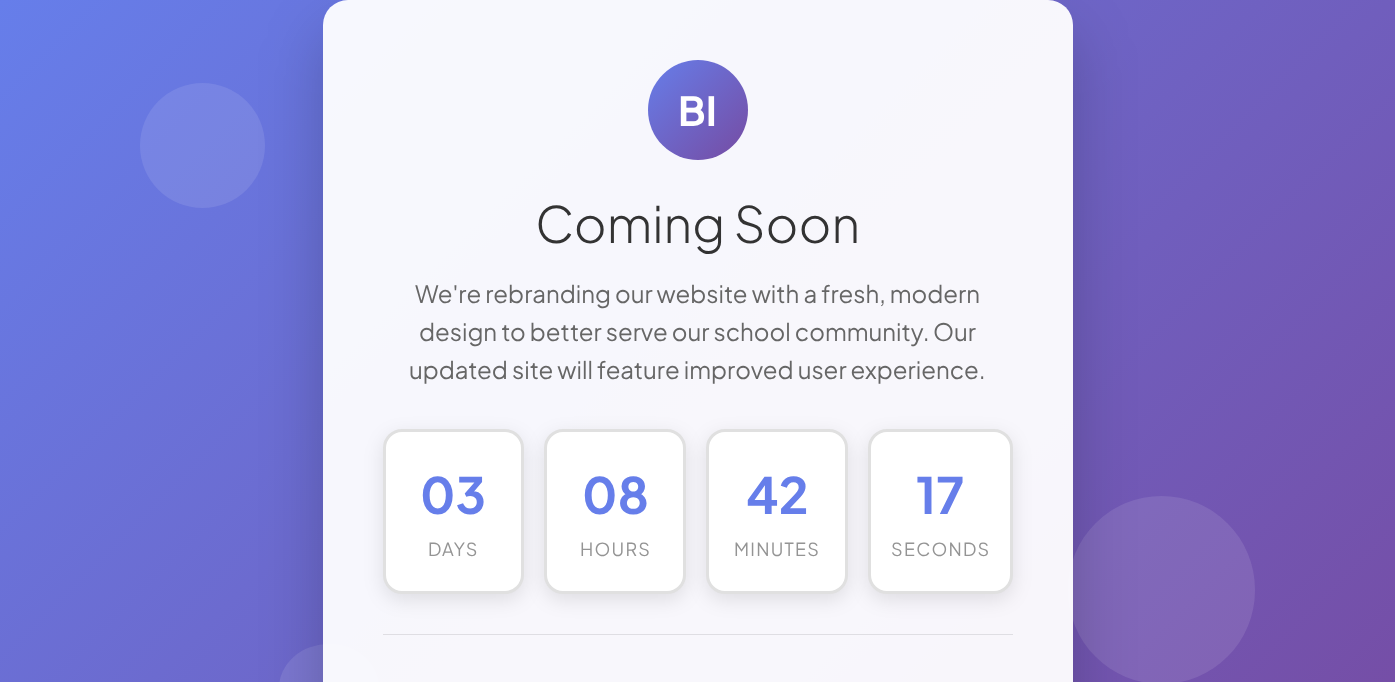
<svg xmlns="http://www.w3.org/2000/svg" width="1395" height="682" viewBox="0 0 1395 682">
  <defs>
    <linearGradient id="g1" gradientUnits="userSpaceOnUse" x1="142" y1="-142" x2="1253" y2="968"><stop offset="0" stop-color="#667eea"/><stop offset="1" stop-color="#764ba2"/></linearGradient>
    <clipPath id="clip1"><path d="M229 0H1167V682H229ZM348 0H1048C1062 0 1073 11 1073 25V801C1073 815 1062 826 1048 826H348C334 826 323 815 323 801V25C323 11 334 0 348 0Z" clip-rule="evenodd"/></clipPath>
    <linearGradient id="g2" gradientUnits="userSpaceOnUse" x1="648" y1="60" x2="748" y2="160"><stop offset="0" stop-color="#667eea"/><stop offset="1" stop-color="#764ba2"/></linearGradient>
  </defs>
  <rect width="100%" height="100%" fill="#fff"/>
  <path d="M0 0h1395v682H0z" fill="url(#g1)"/>
  <circle cx="202.5" cy="145.5" r="62.5" fill="#ffffff1a"/>
  <rect x="279" y="644" width="100" height="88" rx="50" fill="#ffffff1a"/>
  <rect x="1068" y="496" width="187" height="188" rx="93.5" fill="#ffffff1a"/>
  <g clip-path="url(#clip1)">
    <rect x="323" y="31" width="750" height="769" rx="25" fill="#00000033" filter="blur(31px)"/>
  </g>
  <rect x="323" width="750" height="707" rx="25" fill="#fffffff2"/>
  <circle cx="698" cy="110" r="50" fill="url(#g2)"/>
  <rect x="383" y="435" width="141" height="165" rx="19" fill="#0000001a" filter="blur(9.5px)"/>
  <rect x="384.5" y="430.5" width="138" height="162" rx="17.5" fill="#fff" stroke="#e0e0e0" stroke-width="3"/>
  <rect x="544" y="435" width="142" height="165" rx="19" fill="#0000001a" filter="blur(9.5px)"/>
  <rect x="545.5" y="430.5" width="139" height="162" rx="17.5" fill="#fff" stroke="#e0e0e0" stroke-width="3"/>
  <rect x="706" y="435" width="142" height="165" rx="19" fill="#0000001a" filter="blur(9.5px)"/>
  <rect x="707.5" y="430.5" width="139" height="162" rx="17.5" fill="#fff" stroke="#e0e0e0" stroke-width="3"/>
  <rect x="868" y="435" width="145" height="165" rx="19" fill="#0000001a" filter="blur(9.5px)"/>
  <rect x="869.5" y="430.5" width="142" height="162" rx="17.5" fill="#fff" stroke="#e0e0e0" stroke-width="3"/>
  <path d="M383 634h630v1H383z" fill="#dfdee3"/>
  <text x="678" y="126" font-family="Plus Jakarta Sans" font-size="40" font-weight="bold" fill="#fff">BI</text>
  <text x="535" y="243" font-family="Plus Jakarta Sans" font-size="50" font-weight="300" fill="#333">Coming Soon</text>
  <g font-family="Plus Jakarta Sans" font-size="24" fill="#666">
    <text x="415" y="303">We're rebranding our website with a fresh, modern</text>
    <text x="419" y="341">design to better serve our school community.</text>
    <text x="933" y="341">Our</text>
    <text x="409" y="379">updated site will feature improved user experience.</text>
  </g>
  <text x="420" y="514" font-family="Plus Jakarta Sans" font-size="50" font-weight="bold" fill="#667eea">03</text>
  <text x="428" y="556" font-family="Plus Jakarta Sans" font-size="18" letter-spacing="1.25" fill="#949494">DAYS</text>
  <text x="582" y="514" font-family="Plus Jakarta Sans" font-size="50" font-weight="bold" fill="#667eea">08</text>
  <text x="580" y="556" font-family="Plus Jakarta Sans" font-size="18" letter-spacing="1.25" fill="#949494">HOURS</text>
  <text x="746" y="514" font-family="Plus Jakarta Sans" font-size="50" font-weight="bold" fill="#667eea">42</text>
  <text x="734" y="556" font-family="Plus Jakarta Sans" font-size="18" letter-spacing="1.25" fill="#949494">MINUTES</text>
  <text x="916" y="514" font-family="Plus Jakarta Sans" font-size="50" font-weight="bold" fill="#667eea">17</text>
  <text x="891" y="556" font-family="Plus Jakarta Sans" font-size="18" letter-spacing="1.25" fill="#949494">SECONDS</text>
</svg>
